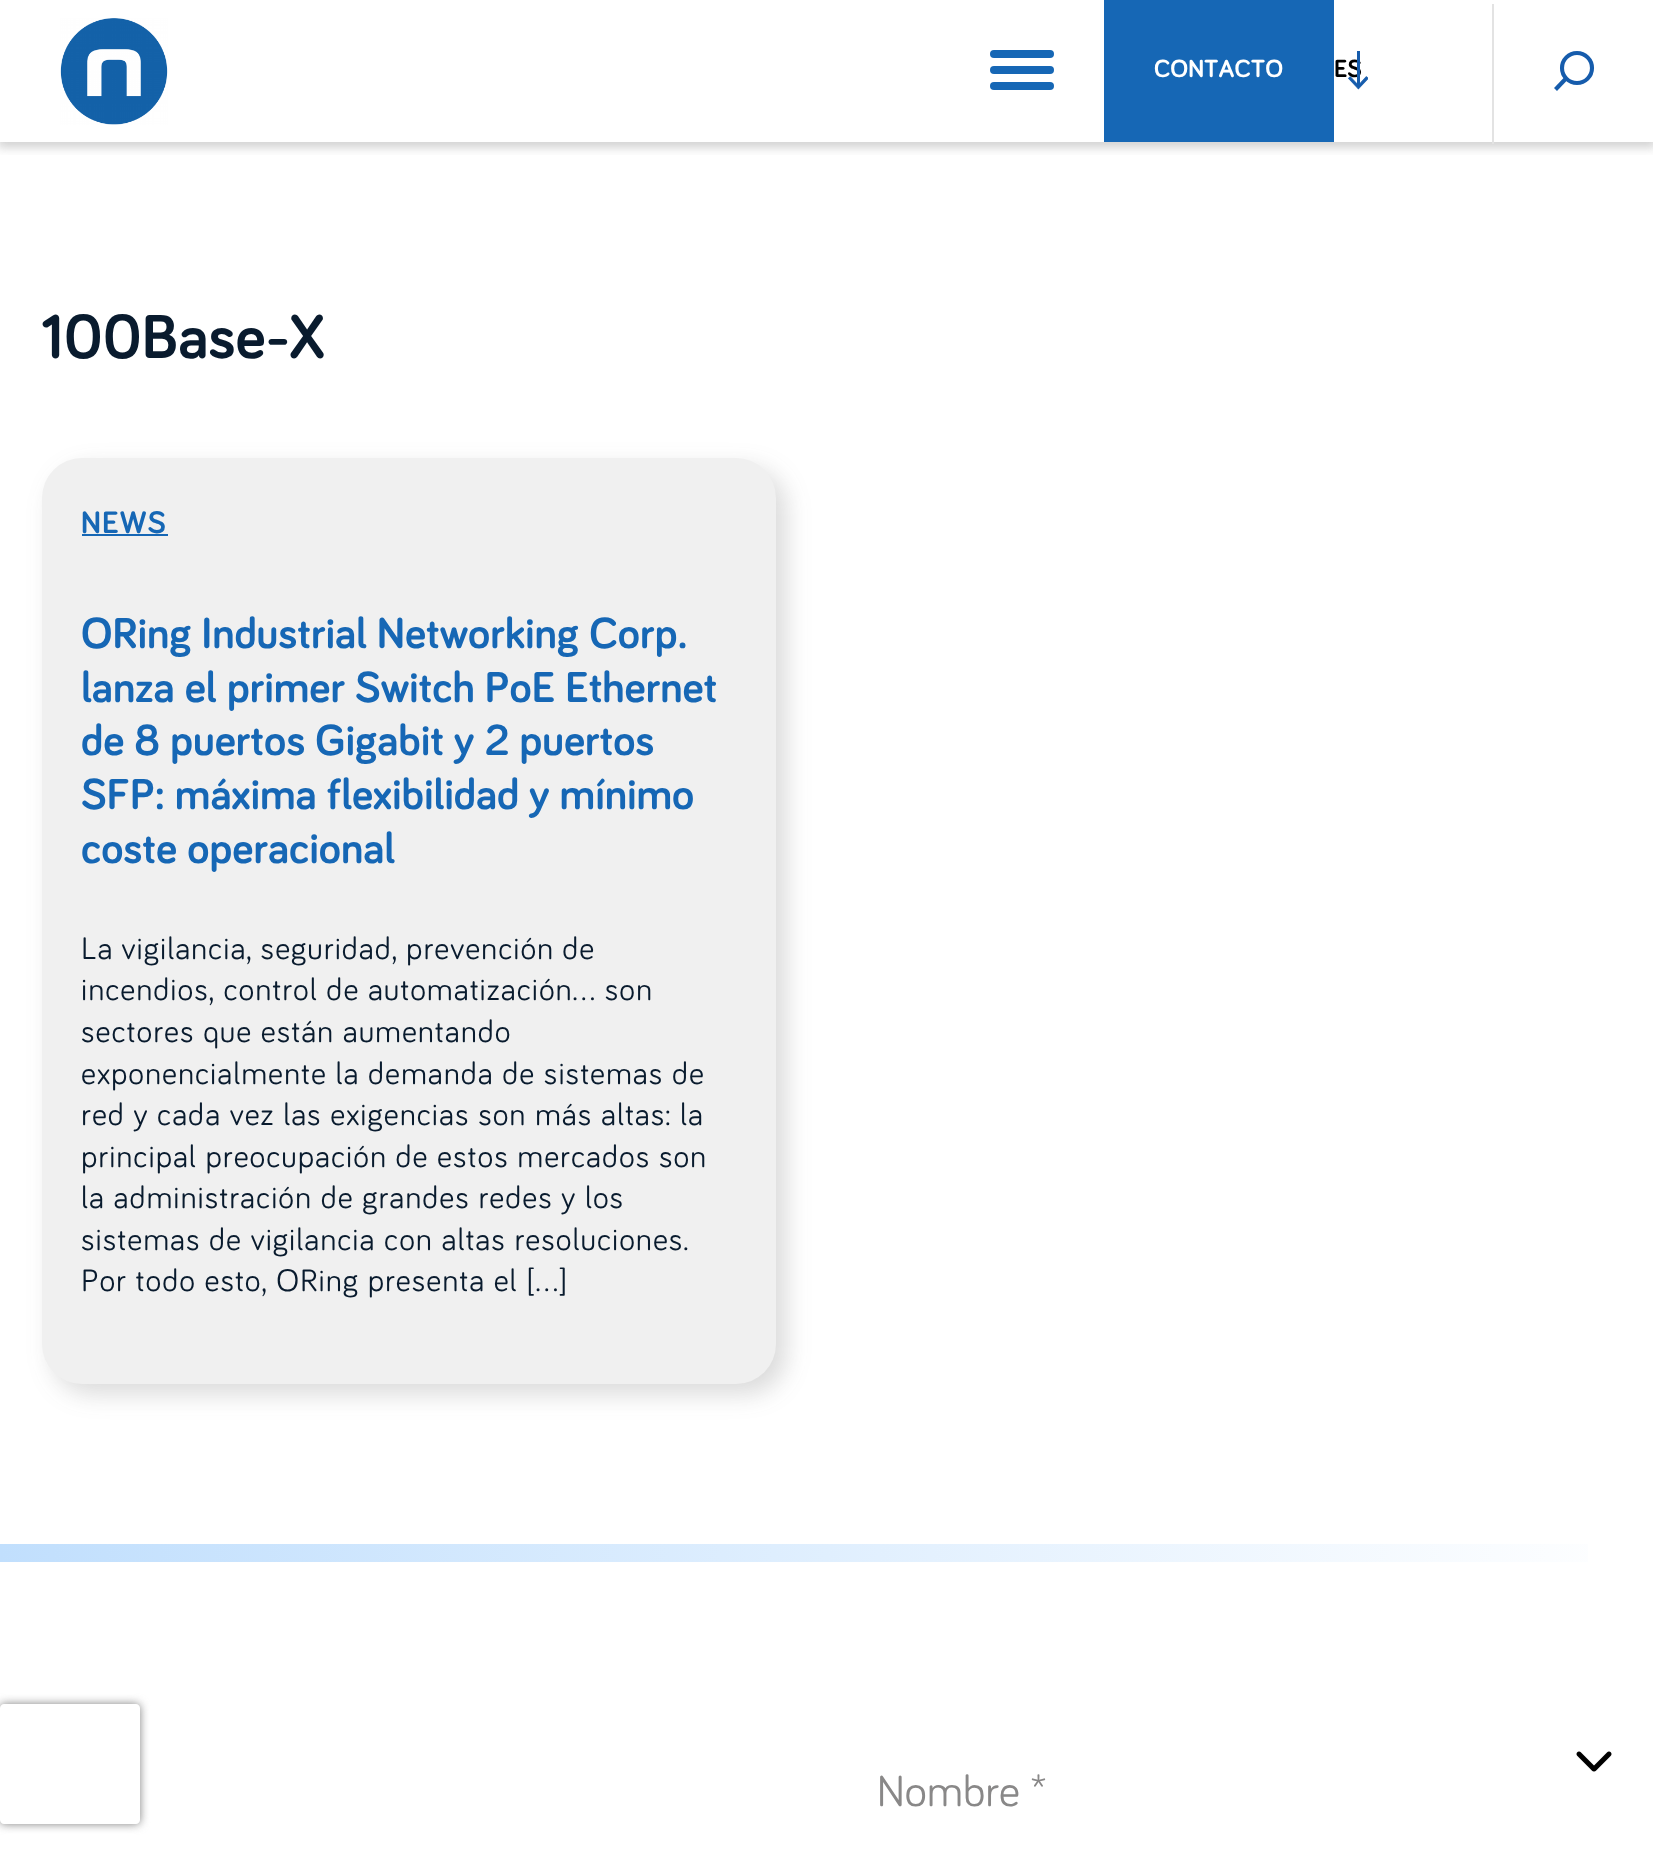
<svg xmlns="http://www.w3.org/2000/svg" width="1653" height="1852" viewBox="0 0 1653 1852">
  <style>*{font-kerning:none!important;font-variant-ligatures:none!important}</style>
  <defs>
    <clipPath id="clip1"><path d="M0 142h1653v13H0z"/></clipPath>
    <linearGradient id="g1" gradientUnits="userSpaceOnUse" x1="1.8" y1="1510" x2="1652" y2="1596"><stop offset="0" stop-color="#c1dffd"/><stop offset="1" stop-color="#fff"/></linearGradient>
    <clipPath id="clip2"><path d="M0 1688H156V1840H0ZM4 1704H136C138 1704 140 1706 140 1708V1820C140 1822 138 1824 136 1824H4C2 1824 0 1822 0 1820V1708C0 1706 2 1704 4 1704Z" clip-rule="evenodd"/></clipPath>
  </defs>
  <rect width="100%" height="100%" fill="#fff"/>
  <g clip-path="url(#clip1)">
    <path d="M-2 2h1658v146H-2z" fill="#4444443b" filter="blur(5px)"/>
  </g>
  <image x="60" y="18" width="108" height="107" href="img/1.png"/>
  <rect x="990" y="50" width="64" height="8" rx="4" fill="#1667b5"/>
  <rect x="990" y="66" width="64" height="8" rx="4" fill="#1667b5"/>
  <rect x="990" y="82" width="64" height="8" rx="4" fill="#1667b5"/>
  <path d="M1104 0h230v142H1104z" fill="#1667b5"/>
  <path d="M1492 4h2v140H1492z" fill="#e3e3e3"/>
  <circle cx="1577" cy="68" r="15" fill="none" stroke="#165cac" stroke-width="4.1"/>
  <path d="M1566 78.5L1555.5 89.5" fill="none" stroke="#165cac" stroke-width="4.1"/>
  <rect x="52" y="468" width="734" height="926" rx="40" fill="#44444433" filter="blur(12px)"/>
  <rect x="42" y="458" width="734" height="926" rx="40" fill="#f0f0f0"/>
  <path d="M82 534h86v2H82z" fill="#1667b5"/>
  <path d="M0 1544h1588v18H0z" fill="url(#g1)"/>
  <g clip-path="url(#clip2)">
    <rect y="1704" width="140" height="120" rx="4" fill="#808080" filter="blur(5px)"/>
  </g>
  <image x="1576" y="1751" width="36" height="21" href="img/3.png"/>
  <text x="1154" y="77" font-family="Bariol" font-size="25.5" font-weight="bold" fill="#fff">CONTACTO</text>
  <text x="1334" y="77" font-family="Bariol" font-size="25.5" font-weight="bold" fill="#000">ES</text>
  <image x="1348" y="51" width="20" height="39" href="img/2.png"/>
  <text x="41" y="358" font-family="Bariol" font-size="64" font-weight="bold" fill="#091b2e">100Base-X</text>
  <text x="81" y="533" font-family="Bariol" font-size="32" font-weight="bold" letter-spacing="1" fill="#1667b5">NEWS</text>
  <g font-family="Bariol" font-size="44.75" font-weight="bold" fill="#1667b5">
    <text x="81" y="648">ORing Industrial Networking Corp.</text>
    <text x="81" y="702">lanza el primer Switch PoE Ethernet</text>
    <text x="81" y="755">de 8 puertos Gigabit y 2 puertos</text>
    <text x="81" y="809">SFP: máxima flexibilidad y mínimo</text>
    <text x="81" y="863">coste operacional</text>
  </g>
  <g font-family="Bariol" font-size="32" letter-spacing="1" fill="#091b2e">
    <text x="81" y="959" word-spacing="-0.5">La vigilancia, seguridad, prevención de</text>
    <text x="81" y="1000">incendios, control de automatización… son</text>
    <text x="81" y="1042">sectores que están aumentando</text>
    <text x="81" y="1084">exponencialmente la demanda de sistemas de</text>
    <text x="81" y="1125">red y cada vez las exigencias son más altas: la</text>
    <text x="81" y="1167">principal preocupación de estos mercados son</text>
    <text x="81" y="1208">la administración de grandes redes y los</text>
    <text x="81" y="1250">sistemas de vigilancia con altas resoluciones.</text>
    <text x="81" y="1291">Por todo esto, ORing presenta el […]</text>
  </g>
  <text x="877" y="1806" font-family="Bariol" font-size="44.75" fill="#898888">Nombre *</text>
</svg>
